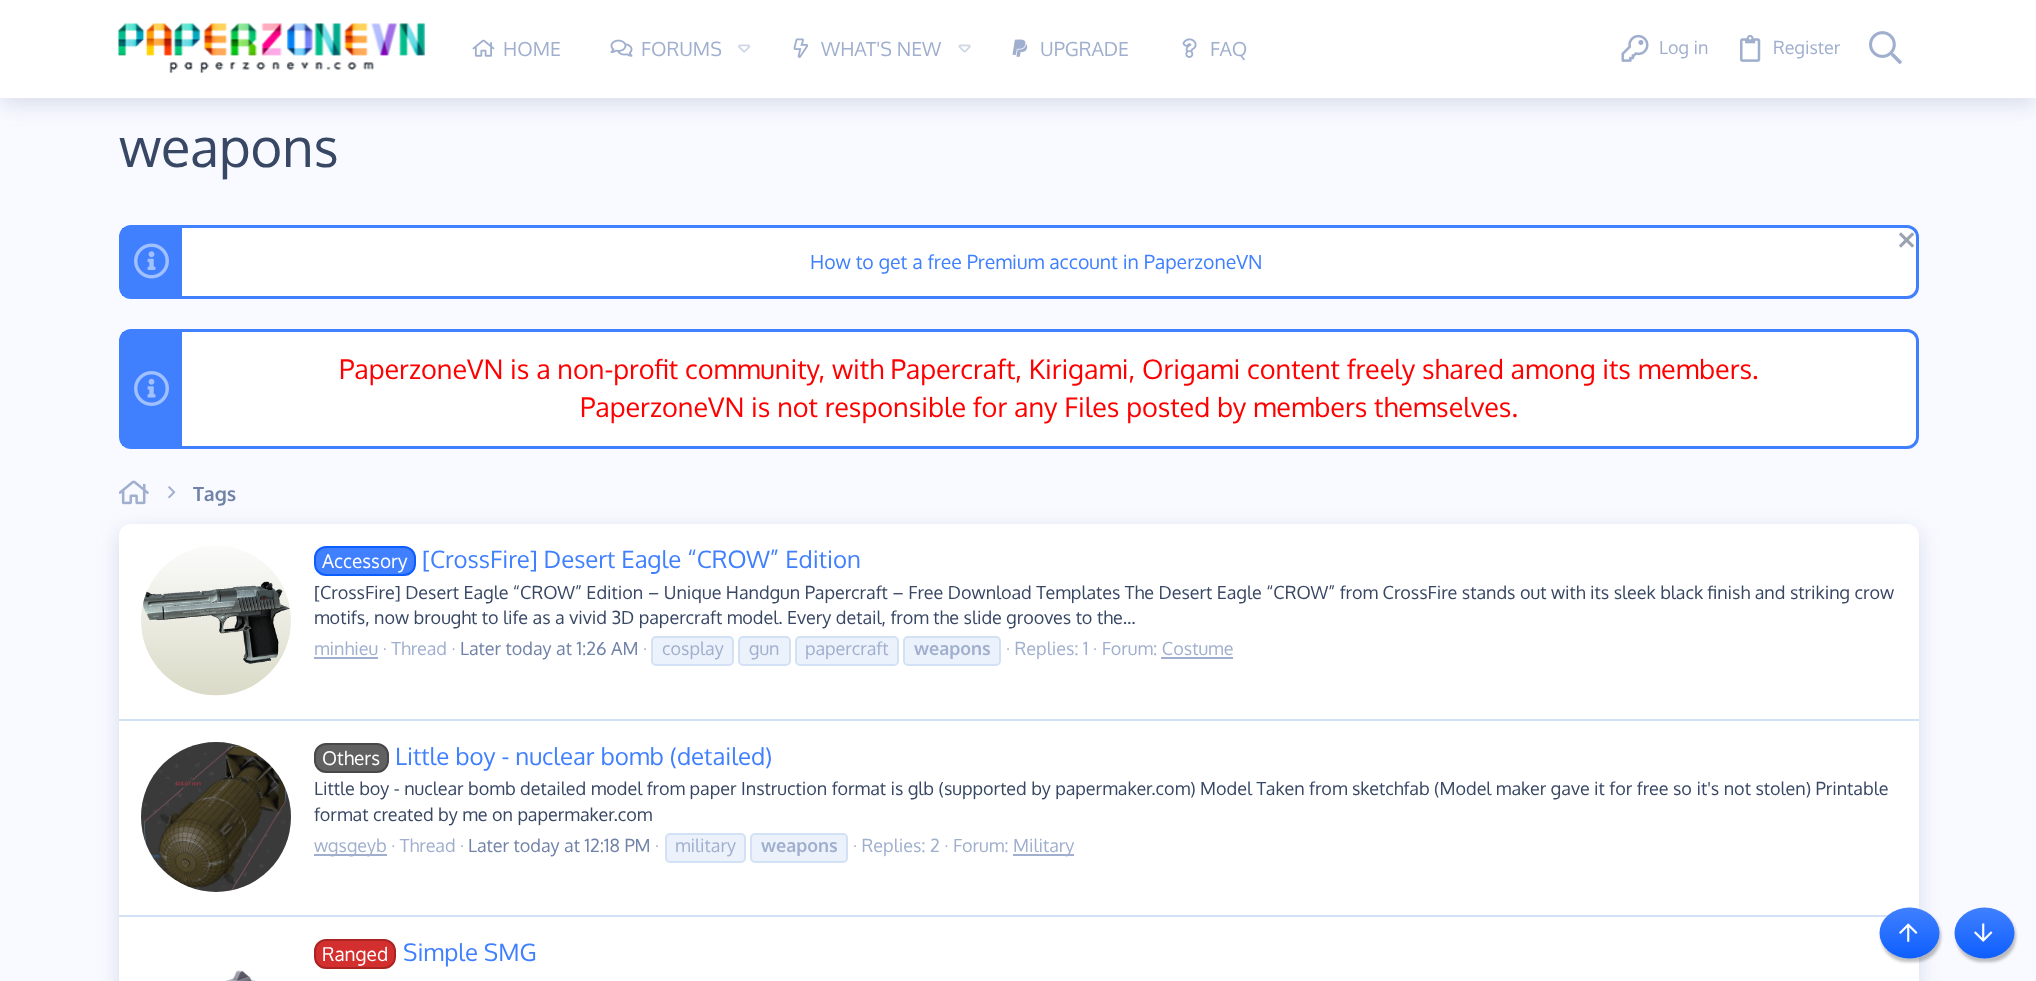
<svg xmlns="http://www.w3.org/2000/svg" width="2036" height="981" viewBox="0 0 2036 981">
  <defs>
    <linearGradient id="g1" gradientUnits="userSpaceOnUse" x1="1910" y1="908" x2="1910" y2="959"><stop offset="0" stop-color="#4080ff"/><stop offset="1" stop-color="#0d5eff"/></linearGradient>
    <linearGradient id="g2" gradientUnits="userSpaceOnUse" x1="1985" y1="908" x2="1985" y2="959"><stop offset="0" stop-color="#4080ff"/><stop offset="1" stop-color="#0d5eff"/></linearGradient>
  </defs>
  <rect width="100%" height="100%" fill="#f8faff"/>
  <path d="M0 6h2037v98H0z" fill="#586a9933" filter="blur(11px)"/>
  <path d="M0 0h2036v98H0z" fill="#fff"/>
  <image x="118" y="23" width="307" height="50" href="img/1.png"/>
  <image x="472" y="39" width="23" height="18" href="img/2.png"/>
  <image x="610" y="39" width="23" height="18" href="img/3.png"/>
  <image x="738" y="44" width="13" height="9" href="img/4.png"/>
  <image x="793" y="38" width="16" height="20" href="img/5.png"/>
  <image x="958" y="44" width="13" height="9" href="img/6.png"/>
  <image x="1012" y="39" width="16" height="18" href="img/7.png"/>
  <image x="1182" y="38" width="15" height="20" href="img/8.png"/>
  <image x="1621" y="34" width="28" height="28" href="img/9.png"/>
  <image x="1740" y="34" width="21" height="28" href="img/10.png"/>
  <image x="1869" y="31" width="33" height="34" href="img/11.png"/>
  <rect x="120.5" y="226.5" width="1797" height="71" rx="10.5" fill="#fff" stroke="#4080ff" stroke-width="3"/>
  <path d="M122 228h60v68H122z" fill="#4080ff"/>
  <image x="134" y="243" width="35" height="36" href="img/12.png"/>
  <image x="1899" y="232" width="15" height="16" href="img/13.png"/>
  <rect x="120.5" y="330.5" width="1797" height="117" rx="10.5" fill="#fff" stroke="#4080ff" stroke-width="3"/>
  <path d="M122 332h60v114H122z" fill="#4080ff"/>
  <image x="134" y="371" width="35" height="35" href="img/14.png"/>
  <image x="168" y="486" width="8" height="13" href="img/16.png"/>
  <rect x="119" y="530" width="1800" height="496" rx="12" fill="#586a9933" filter="blur(11px)"/>
  <image x="119" y="480" width="30" height="25" href="img/15.png"/>
  <rect x="119" y="524" width="1800" height="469" rx="12" fill="#fff"/>
  <image x="141" y="546" width="150" height="150" href="img/17.png"/>
  <rect x="315" y="547" width="100" height="28" rx="11" fill="#4080ff" stroke="#0d5eff" stroke-width="2"/>
  <path d="M314 657h64v2H314z" fill="#a0afce"/>
  <rect x="652" y="637" width="81" height="28" rx="4" fill="#ecf2fb" stroke="#d3e1f6" stroke-width="2"/>
  <rect x="739" y="637" width="51" height="28" rx="4" fill="#ecf2fb" stroke="#d3e1f6" stroke-width="2"/>
  <rect x="796" y="637" width="102" height="28" rx="4" fill="#ecf2fb" stroke="#d3e1f6" stroke-width="2"/>
  <rect x="904" y="637" width="96" height="28" rx="4" fill="#ecf2fb" stroke="#d3e1f6" stroke-width="2"/>
  <path d="M1161 657h72v2H1161z" fill="#a0afce"/>
  <path d="M119 719h1800v2H119z" fill="#d3e1f6"/>
  <image x="141" y="742" width="150" height="150" href="img/18.png"/>
  <rect x="315" y="744" width="73" height="28" rx="11" fill="#616161" stroke="#484848" stroke-width="2"/>
  <path d="M314 854h73v2H314z" fill="#a0afce"/>
  <rect x="666" y="834" width="79" height="28" rx="4" fill="#ecf2fb" stroke="#d3e1f6" stroke-width="2"/>
  <rect x="751" y="834" width="96" height="28" rx="4" fill="#ecf2fb" stroke="#d3e1f6" stroke-width="2"/>
  <path d="M1013 854h61v2H1013z" fill="#a0afce"/>
  <path d="M119 915h1770v2H119z" fill="#d3e1f6"/>
  <rect x="315" y="940" width="80" height="28" rx="11" fill="#d32f2f" stroke="#ab2424" stroke-width="2"/>
  <image x="225" y="970" width="31" height="11" href="img/19.png"/>
  <rect x="1881" y="911" width="60" height="51" rx="25.5" fill="#00000040" filter="blur(1.5px)"/>
  <ellipse cx="1909.5" cy="933" rx="30" ry="25.5" fill="url(#g1)"/>
  <image x="1899" y="923" width="19" height="19" href="img/20.png"/>
  <rect x="1956" y="911" width="60" height="51" rx="25.5" fill="#00000040" filter="blur(1.5px)"/>
  <ellipse cx="1984.5" cy="933" rx="30" ry="25.5" fill="url(#g2)"/>
  <image x="1974" y="923" width="19" height="19" href="img/21.png"/>
  <g font-family="Oxygen" font-size="19.5" fill="#a0afce">
    <text x="503" y="56">HOME</text>
    <text x="641" y="56">FORUMS</text>
    <text x="821" y="56">WHAT'S NEW</text>
    <text x="1040" y="56">UPGRADE</text>
    <text x="1210" y="56">FAQ</text>
  </g>
  <g font-family="Oxygen" font-size="18" fill="#a0afce">
    <text x="1659" y="54">Log in</text>
    <text x="1773" y="54">Register</text>
  </g>
  <text x="119" y="167" font-family="Oxygen" font-size="54" fill="#384764">weapons</text>
  <text x="810" y="269" font-family="Oxygen" font-size="19.5" fill="#4080ff">How to get a free Premium account in PaperzoneVN</text>
  <g font-family="Oxygen" font-size="27" fill="#f00">
    <text x="339" y="379">PaperzoneVN is a non-profit community, with Papercraft, Kirigami, Origami content freely shared among its members.</text>
    <text x="580" y="417">PaperzoneVN is not responsible for any Files posted by members themselves.</text>
  </g>
  <text x="193" y="501" font-family="Oxygen" font-size="19.5" font-weight="bold" fill="#7082a7">Tags</text>
  <text x="322" y="568" font-family="Oxygen" font-size="19" fill="#fff">Accessory</text>
  <text x="422" y="568" font-family="Oxygen" font-size="24" fill="#4080ff">[CrossFire] Desert Eagle “CROW” Edition</text>
  <g font-family="Oxygen" font-size="18" fill="#384764">
    <text x="314" y="599">[CrossFire] Desert Eagle “CROW” Edition – Unique Handgun Papercraft – Free Download Templates The Desert Eagle “CROW” from CrossFire stands out with its sleek black finish and striking crow</text>
    <text x="314" y="624">motifs, now brought to life as a vivid 3D papercraft model. Every detail, from the slide grooves to the...</text>
  </g>
  <text x="314" y="655" font-family="Oxygen" font-size="18" fill="#a0afce">minhieu · Thread ·</text>
  <text x="460" y="655" font-family="Oxygen" font-size="18" fill="#7082a7">Later today at 1:26 AM</text>
  <g font-family="Oxygen" font-size="18" fill="#a0afce">
    <text x="643" y="655">·</text>
    <text x="662" y="655">cosplay</text>
    <text x="749" y="655">gun</text>
    <text x="805" y="655">papercraft</text>
  </g>
  <text x="914" y="655" font-family="Oxygen" font-size="18" font-weight="bold" fill="#a0afce">weapons</text>
  <text x="1006" y="655" font-family="Oxygen" font-size="18" fill="#a0afce">· Replies: 1 · Forum: Costume</text>
  <text x="322" y="765" font-family="Oxygen" font-size="19" fill="#fff">Others</text>
  <text x="395" y="765" font-family="Oxygen" font-size="24" fill="#4080ff">Little boy - nuclear bomb (detailed)</text>
  <g font-family="Oxygen" font-size="18" fill="#384764">
    <text x="314" y="795">Little boy - nuclear bomb detailed model from paper Instruction format is glb (supported by papermaker.com) Model Taken from sketchfab (Model maker gave it for free so it's not stolen) Printable</text>
    <text x="314" y="821">format created by me on papermaker.com</text>
  </g>
  <text x="314" y="852" font-family="Oxygen" font-size="18" fill="#a0afce">wgsgeyb · Thread ·</text>
  <text x="468" y="852" font-family="Oxygen" font-size="18" fill="#7082a7">Later today at 12:18 PM</text>
  <g font-family="Oxygen" font-size="18" fill="#a0afce">
    <text x="655" y="852">·</text>
    <text x="675" y="852">military</text>
  </g>
  <text x="761" y="852" font-family="Oxygen" font-size="18" font-weight="bold" fill="#a0afce">weapons</text>
  <g font-family="Oxygen" font-size="18" fill="#a0afce">
    <text x="853" y="852">· Replies: 2 · Forum:</text>
    <text x="1013" y="852">Military</text>
  </g>
  <text x="322" y="961" font-family="Oxygen" font-size="19" fill="#fff">Ranged</text>
  <text x="403" y="961" font-family="Oxygen" font-size="24" fill="#4080ff">Simple SMG</text>
</svg>
